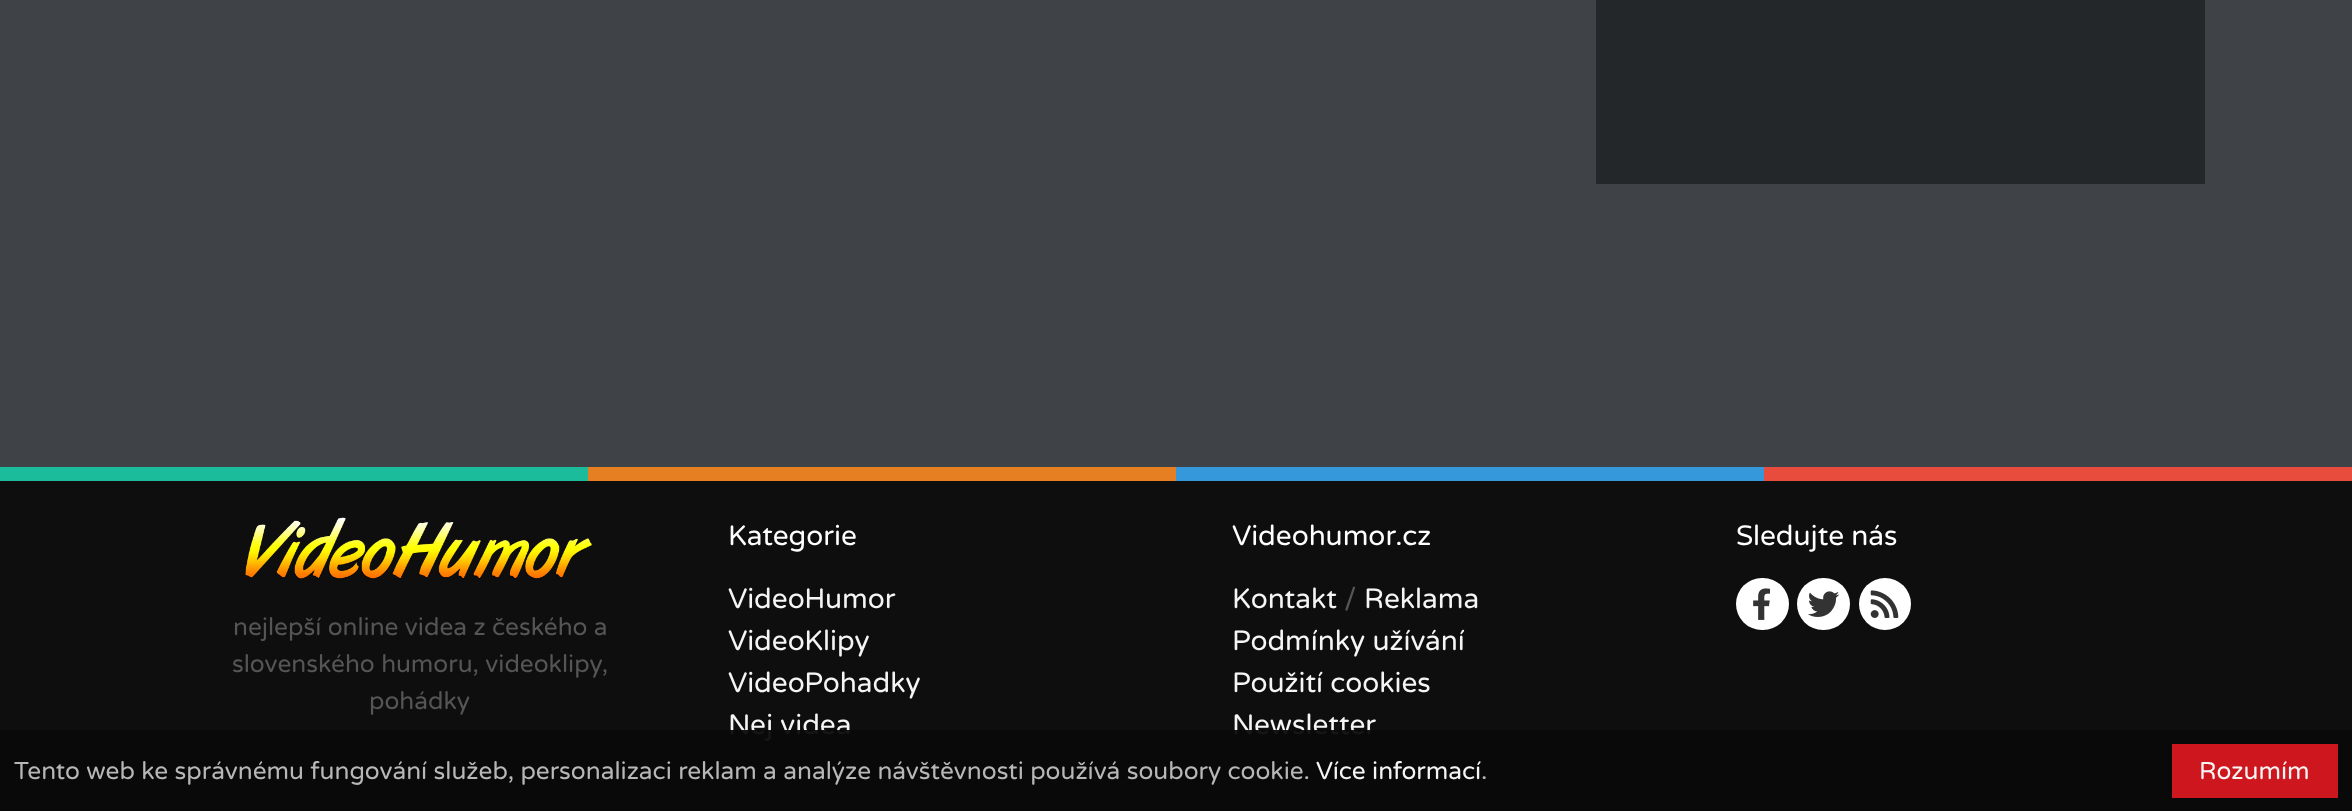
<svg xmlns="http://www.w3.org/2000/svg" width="2352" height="811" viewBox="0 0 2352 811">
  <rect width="100%" height="100%" fill="#3f4246"/>
  <path d="M1596 0h609v184H1596z" fill="#24272a"/>
  <path d="M0 481h2352v301H0z" fill="#0e0e0e"/>
  <path d="M0 467h588v14H0z" fill="#1abc9c"/>
  <path d="M588 467h588v14H588z" fill="#e67e22"/>
  <path d="M1176 467h588v14H1176z" fill="#3498db"/>
  <path d="M1764 467h588v14H1764z" fill="#e74c3c"/>
  <rect x="1736" y="578" width="53" height="52" rx="26" fill="#fff"/>
  <image x="1753" y="588" width="18" height="32" href="img/1.png"/>
  <rect x="1797" y="578" width="53" height="52" rx="26" fill="#fff"/>
  <image x="1808" y="591" width="32" height="26" href="img/2.png"/>
  <circle cx="1885" cy="604" r="26" fill="#fff"/>
  <image x="1870" y="590" width="29" height="28" href="img/3.png"/>
  <image x="245" y="517" width="347" height="62" href="img/4.png"/>
  <path d="M0 782h2352v29H0z" fill="#060606"/>
  <text x="728" y="545" font-family="Varela Round" font-size="28" fill="#fff">Kategorie</text>
  <g font-family="Varela Round" font-size="28" fill="#f5f5f5">
    <text x="728" y="608">VideoHumor</text>
    <text x="728" y="650">VideoKlipy</text>
    <text x="728" y="692">VideoPohadky</text>
    <text x="728" y="734">Nej videa</text>
  </g>
  <text x="1232" y="545" font-family="Varela Round" font-size="28" fill="#fff">Videohumor.cz</text>
  <text x="1232" y="608" font-family="Varela Round" font-size="28" fill="#f5f5f5">Kontakt</text>
  <text x="1344" y="608" font-family="Varela Round" font-size="28" fill="#555">/</text>
  <g font-family="Varela Round" font-size="28" fill="#f5f5f5">
    <text x="1364" y="608">Reklama</text>
    <text x="1232" y="650">Podmínky užívání</text>
    <text x="1232" y="692">Použití cookies</text>
    <text x="1232" y="734">Newsletter</text>
  </g>
  <text x="1736" y="545" font-family="Varela Round" font-size="28" fill="#fff">Sledujte nás</text>
  <g font-family="Varela Round" font-size="24.5" fill="#555">
    <text x="233" y="635">nejlepší online videa z českého a</text>
    <text x="232" y="672">slovenského humoru, videoklipy,</text>
    <text x="369" y="709">pohádky</text>
  </g>
  <path d="M0 730h2352v81H0z" fill="#0a0a0af2"/>
  <text x="14" y="779" font-family="Varela Round" font-size="24.5" fill="#b7b7b7">Tento web ke správnému fungování služeb, personalizaci reklam a analýze návštěvnosti používá soubory cookie.</text>
  <text x="1316" y="779" font-family="Varela Round" font-size="24.5" fill="#f5f5f5">Více informací</text>
  <text x="1481" y="779" font-family="Varela Round" font-size="24.5" fill="#b7b7b7">.</text>
  <path d="M2172 744h166v54H2172z" fill="#cd161e"/>
  <text x="2199" y="779" font-family="Varela Round" font-size="24.5" fill="#f5f5f5">Rozumím</text>
</svg>
